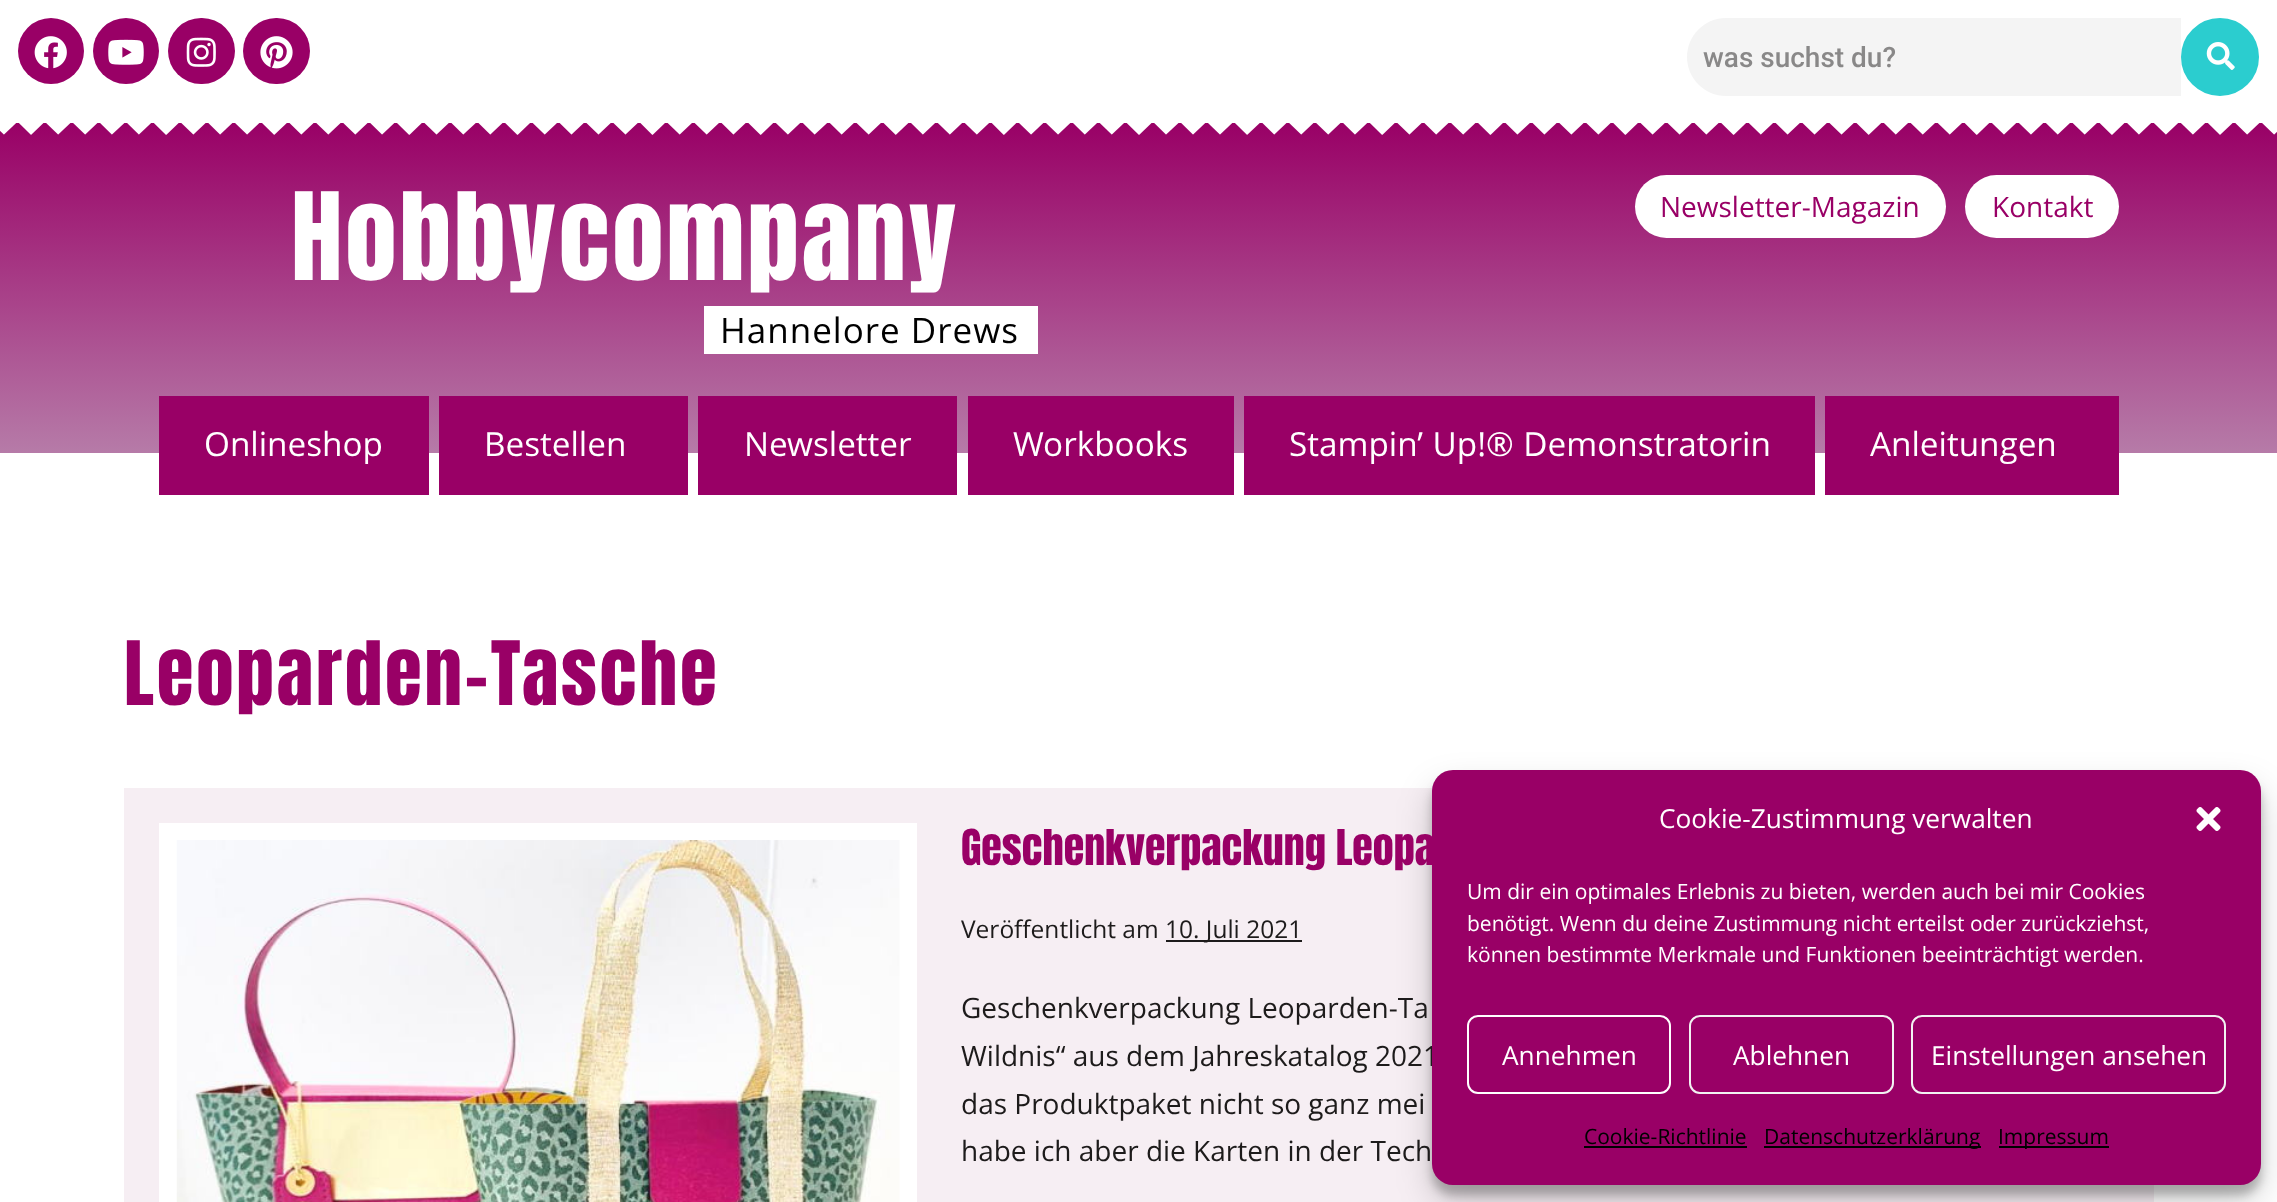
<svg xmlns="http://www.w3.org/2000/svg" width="2277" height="1202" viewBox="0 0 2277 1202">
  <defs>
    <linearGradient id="g1" gradientUnits="userSpaceOnUse" x1="1139" y1="122" x2="1139" y2="453"><stop offset="0" stop-color="#906"/><stop offset="1" stop-color="#b67ba8"/></linearGradient>
  </defs>
  <rect width="100%" height="100%" fill="#fff"/>
  <circle cx="51" cy="51" r="33" fill="#906"/>
  <image x="34" y="36" width="33" height="33" href="img/1.png"/>
  <circle cx="126" cy="51" r="33" fill="#906"/>
  <image x="108" y="39" width="36" height="26" href="img/2.png"/>
  <rect x="168" y="18" width="67" height="66" rx="33" fill="#906"/>
  <image x="186" y="37" width="30" height="30" href="img/3.png"/>
  <rect x="243" y="18" width="67" height="66" rx="33" fill="#906"/>
  <image x="260" y="36" width="33" height="33" href="img/4.png"/>
  <path d="M1726 18H2181V96H1726C1704.5 96 1687 78.5 1687 57C1687 35.5 1704.5 18 1726 18Z" fill="#f4f4f4"/>
  <circle cx="2220" cy="57" r="37" fill="#2bcdcf" stroke="#2bcdcf" stroke-width="4"/>
  <image x="2206" y="42" width="29" height="28" href="img/5.png"/>
  <path d="M0 123h2277v330H0z" fill="url(#g1)"/>
  <image x="0" y="123" width="2277" height="12" href="img/6.png"/>
  <path d="M704 306h334v48H704z" fill="#fff"/>
  <rect x="1635" y="175" width="311" height="63" rx="31.5" fill="#fff"/>
  <rect x="1965" y="175" width="154" height="63" rx="31.5" fill="#fff"/>
  <path d="M159 396h270v99H159z" fill="#906"/>
  <path d="M439 396h249v99H439z" fill="#906"/>
  <path d="M698 396h259v99H698z" fill="#906"/>
  <path d="M968 396h266v99H968z" fill="#906"/>
  <path d="M1244 396h571v99H1244z" fill="#906"/>
  <path d="M1825 396h294v99H1825z" fill="#906"/>
  <path d="M124 788h2030v414H124z" fill="#f6eef3"/>
  <path d="M168 832h740v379H168z" fill="none" stroke="#fff" stroke-width="18"/>
  <image x="176" y="840" width="724" height="362" href="img/7.png"/>
  <path d="M1166 940h136v2H1166z" fill="#1d1b1b"/>
  <rect x="1432" y="781" width="829" height="414" rx="21" fill="#0000003b" filter="blur(5px)"/>
  <rect x="1432" y="788" width="829" height="414" rx="21" fill="#00000030" filter="blur(17.5px)"/>
  <text x="1703" y="67" font-family="Roboto" font-size="28" font-weight="500" fill="#898888">was suchst du?</text>
  <text x="291" y="280" font-family="Anton" font-size="103.25" letter-spacing="2.75" fill="#fff">Hobbycompany</text>
  <text x="720" y="343" font-family="Open Sans" font-size="35" letter-spacing="1" fill="#000">Hannelore Drews</text>
  <g font-family="Open Sans" font-size="28" fill="#906">
    <text x="1660" y="217">Newsletter-Magazin</text>
    <text x="1992" y="217">Kontakt</text>
  </g>
  <g font-family="'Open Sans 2'" font-size="33.25" fill="#fff">
    <text x="204" y="456">Onlineshop</text>
    <text x="484" y="456">Bestellen</text>
    <text x="744" y="456">Newsletter</text>
    <text x="1013" y="456">Workbooks</text>
    <text x="1289" y="456" word-spacing="1">Stampin’ Up!® Demonstratorin</text>
    <text x="1870" y="456">Anleitungen</text>
  </g>
  <text x="124" y="705" font-family="Anton" font-size="75.25" letter-spacing="2.75" fill="#906">Leoparden-Tasche</text>
  <text x="961" y="865" font-family="Anton" font-size="42" fill="#906">Geschenkverpackung Leopa</text>
  <g font-family="Open Sans" font-size="24.5" fill="#1d1b1b">
    <text x="961" y="938">Veröffentlicht am</text>
    <text x="1165" y="938">10. Juli 2021</text>
  </g>
  <g font-family="Open Sans" font-size="28" fill="#1d1b1b">
    <text x="961" y="1018">Geschenkverpackung Leoparden-Ta</text>
    <text x="961" y="1066">Wildnis“ aus dem Jahreskatalog 2021</text>
    <text x="961" y="1114">das Produktpaket nicht so ganz mei</text>
    <text x="961" y="1161">habe ich aber die Karten in der Tech</text>
  </g>
  <rect x="1432" y="770" width="829" height="415" rx="21" fill="#906"/>
  <text x="1659" y="828" font-family="Open Sans" font-size="26.25" fill="#fff">Cookie-Zustimmung verwalten</text>
  <image x="2196" y="807" width="25" height="24" href="img/8.png"/>
  <g font-family="Open Sans" font-size="21" fill="#fff">
    <text x="1467" y="899">Um dir ein optimales Erlebnis zu bieten, werden auch bei mir Cookies</text>
    <text x="1467" y="931">benötigt. Wenn du deine Zustimmung nicht erteilst oder zurückziehst,</text>
    <text x="1467" y="962">können bestimmte Merkmale und Funktionen beeinträchtigt werden.</text>
  </g>
  <rect x="1468" y="1016" width="202" height="77" rx="10" fill="none" stroke="#fff" stroke-width="2"/>
  <text x="1502" y="1065" font-family="Open Sans" font-size="26.25" fill="#fff">Annehmen</text>
  <rect x="1690" y="1016" width="203" height="77" rx="10" fill="none" stroke="#f2f2f2" stroke-width="2"/>
  <text x="1733" y="1065" font-family="Open Sans" font-size="26.25" fill="#fff">Ablehnen</text>
  <rect x="1912" y="1016" width="313" height="77" rx="10" fill="none" stroke="#f2f2f2" stroke-width="2"/>
  <text x="1931" y="1065" font-family="Open Sans" font-size="26.25" fill="#fff">Einstellungen ansehen</text>
  <text x="1584" y="1144" font-family="Open Sans" font-size="21" fill="#000">Cookie-Richtlinie</text>
  <path d="M1584 1146h163v2H1584z" fill="#000"/>
  <path d="M1764 1146h217v2H1764z" fill="#000"/>
  <text x="1764" y="1144" font-family="Open Sans" font-size="21" fill="#000">Datenschutzerklärung</text>
  <path d="M1999 1146h110v2H1999z" fill="#000"/>
  <text x="1998" y="1144" font-family="Open Sans" font-size="21" fill="#000">Impressum</text>
</svg>
